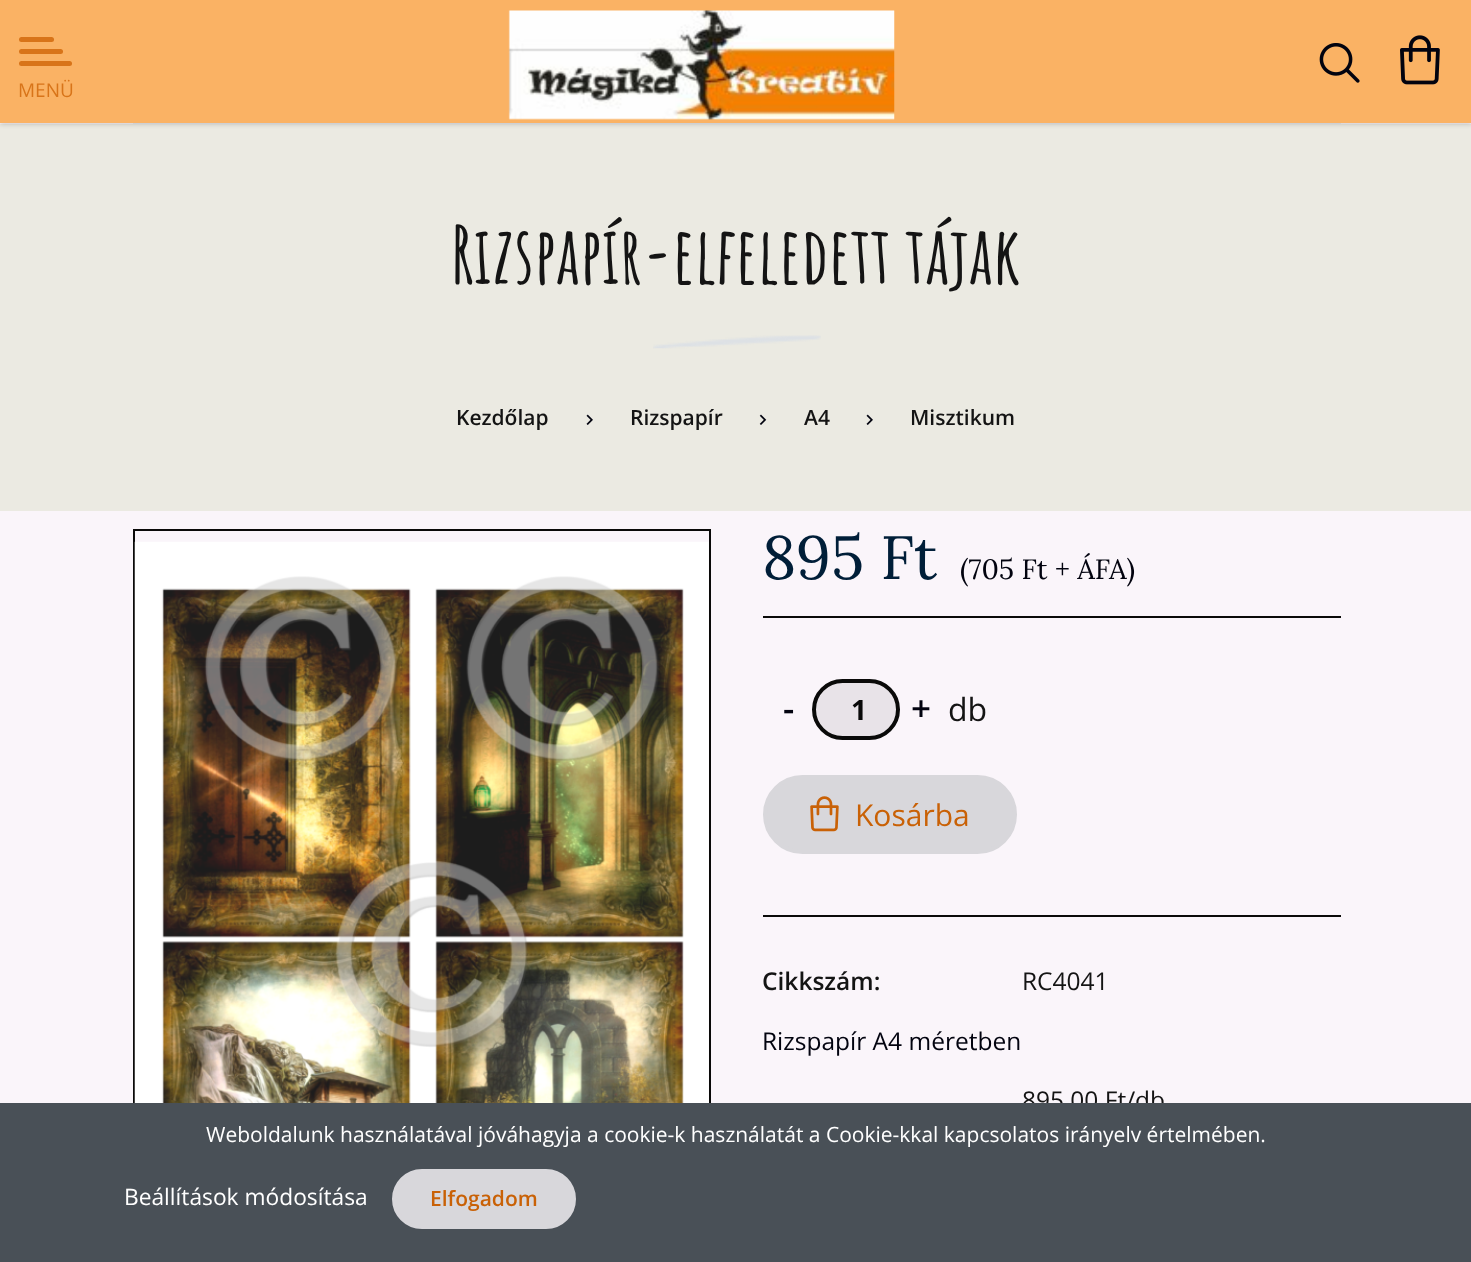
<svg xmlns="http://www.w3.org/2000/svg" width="1471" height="1262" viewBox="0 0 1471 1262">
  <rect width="100%" height="100%" fill="#faf5fa"/>
  <path d="M133 123h1208v1H133z" fill="#e9ebf0"/>
  <path d="M0 124h1471v387H0z" fill="#ebeae2"/>
  <path d="M0 2h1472v122H0z" fill="#00000033" filter="blur(2.5px)"/>
  <path d="M0 0h1471v123H0z" fill="#fab264"/>
  <image x="508" y="10" width="387" height="110" href="img/1.png"/>
  <image x="1319" y="43" width="41" height="40" href="img/2.png"/>
  <image x="1400" y="35" width="40" height="50" href="img/3.png"/>
  <rect x="19" y="61" width="53" height="5" rx="2.5" fill="#d87419"/>
  <rect x="19" y="37" width="35" height="5" rx="2.5" fill="#d87419"/>
  <rect x="19" y="49" width="44" height="5" rx="2.5" fill="#d87419"/>
  <image x="653" y="335" width="168" height="14" href="img/4.png"/>
  <image x="586" y="414" width="7" height="11" href="img/5.png"/>
  <image x="759" y="414" width="8" height="11" href="img/6.png"/>
  <image x="866" y="414" width="7" height="11" href="img/5.png"/>
  <path d="M134 530h576v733H134z" fill="none" stroke="#0a0a09" stroke-width="2"/>
  <image x="134" y="541" width="575" height="562" href="img/7.png"/>
  <path d="M763 616h578v2H763z" fill="#0a0a09"/>
  <path d="M763 915h578v2H763z" fill="#0a0a09"/>
  <rect x="814" y="681" width="84" height="57" rx="28.5" fill="#e8e3e8" stroke="#0a0a09" stroke-width="4"/>
  <rect x="765" y="777" width="250" height="75" rx="37.5" fill="#d8d7db" stroke="#d8d7db" stroke-width="4"/>
  <image x="810" y="796" width="29" height="36" href="img/8.png"/>
  <text x="18" y="97" font-family="Open Sans" font-size="19" fill="#d87419">MENÜ</text>
  <text x="451" y="284" font-family="Amatic SC" font-size="78.75" font-weight="bold" fill="#141414">Rizspapír-elfeledett tájak</text>
  <g font-family="Open Sans" font-size="21" font-weight="600" fill="#141414">
    <text x="456" y="425">Kezdőlap</text>
    <text x="630" y="425">Rizspapír</text>
    <text x="804" y="425">A4</text>
    <text x="910" y="425">Misztikum</text>
  </g>
  <text x="762" y="579" font-family="Lora" font-size="61" fill="#001e38">895 Ft</text>
  <text x="960" y="579" font-family="Lora" font-size="28" fill="#02030f">(705 Ft + ÁFA)</text>
  <text x="783" y="721" font-family="Open Sans" font-size="35" font-weight="600" fill="#02030f">-</text>
  <text x="851" y="720" font-family="Open Sans" font-size="28" font-weight="bold" fill="#0a0a0a">1</text>
  <text x="911" y="721" font-family="Open Sans" font-size="35" font-weight="600" fill="#02030f">+</text>
  <text x="948" y="721" font-family="Open Sans" font-size="32" fill="#141414">db</text>
  <text x="855" y="826" font-family="Open Sans" font-size="30" fill="#c96106">Kosárba</text>
  <text x="762" y="990" font-family="Open Sans" font-size="24.5" font-weight="600" fill="#141414">Cikkszám:</text>
  <text x="1022" y="990" font-family="Open Sans" font-size="24.5" fill="#141414">RC4041</text>
  <text x="762" y="1050" font-family="Open Sans" font-size="24.5" fill="#02030f">Rizspapír A4 méretben</text>
  <text x="1022" y="1109" font-family="Open Sans" font-size="24.5" fill="#141414">895,00 Ft/db</text>
  <path d="M0 1103h1471v159H0z" fill="#495057"/>
  <text x="206" y="1142" font-family="Open Sans" font-size="21" fill="#fff">Weboldalunk használatával jóváhagyja a cookie-k használatát a Cookie-kkal kapcsolatos irányelv értelmében.</text>
  <text x="124" y="1205" font-family="Open Sans" font-size="22.75" fill="#fff">Beállítások módosítása</text>
  <rect x="394" y="1171" width="180" height="56" rx="28" fill="#d8d7db" stroke="#d8d7db" stroke-width="4"/>
  <text x="430" y="1206" font-family="Open Sans" font-size="21" font-weight="600" fill="#c96106">Elfogadom</text>
</svg>
